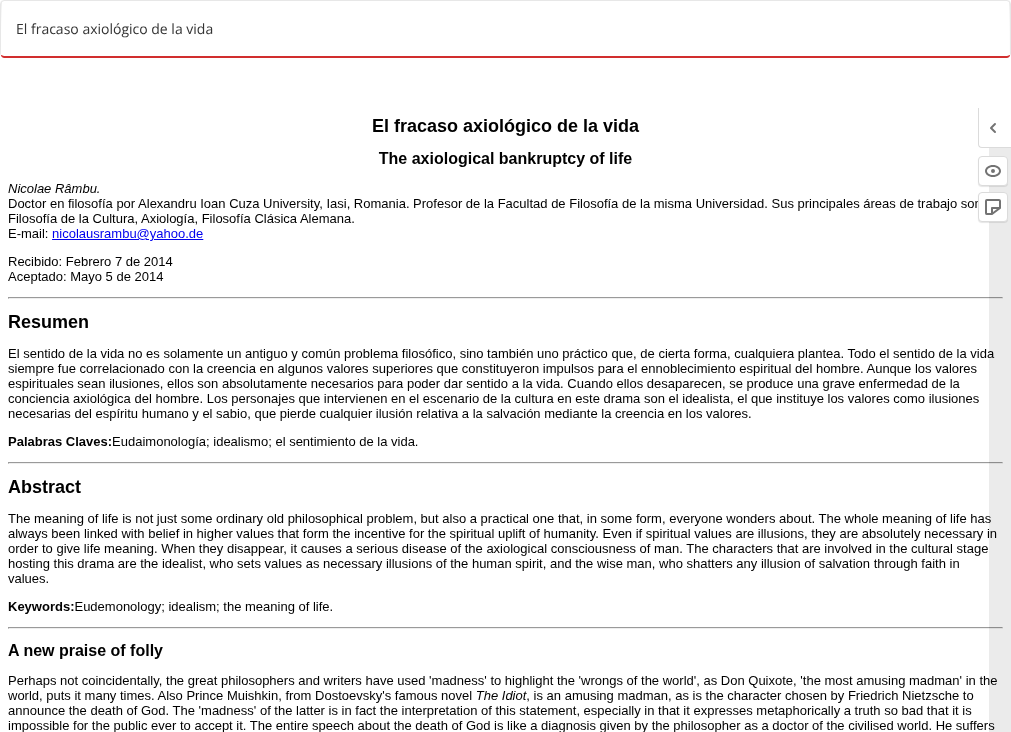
<svg xmlns="http://www.w3.org/2000/svg" width="1011" height="732" viewBox="0 0 1011 732">
  <rect width="100%" height="100%" fill="#fff"/>
  <path d="M4 0L1 1L2 2L4 1H1007L1009 2L1010 1L1007 0Z" fill="#e7e7e7"/>
  <path d="M1011 54V4L1010 1L1009 2C1010 3 1010 54 1010 55V56Z" fill="#e7e7e7"/>
  <path d="M4 58H1007C1008 58 1009 57 1010 56V55L1007 56H4L1 55V56C2 57 3 58 4 58Z" fill="#d12e2e"/>
  <path d="M0 4V54L1 56V55C1 54 1 3 2 2L1 1Z" fill="#e7e7e7"/>
  <image x="8" y="108" width="1003" height="624" href="img/1.png"/>
  <text x="16" y="34" font-family="Open Sans" font-size="14" fill="#333">El fracaso axiológico de la vida</text>
</svg>
